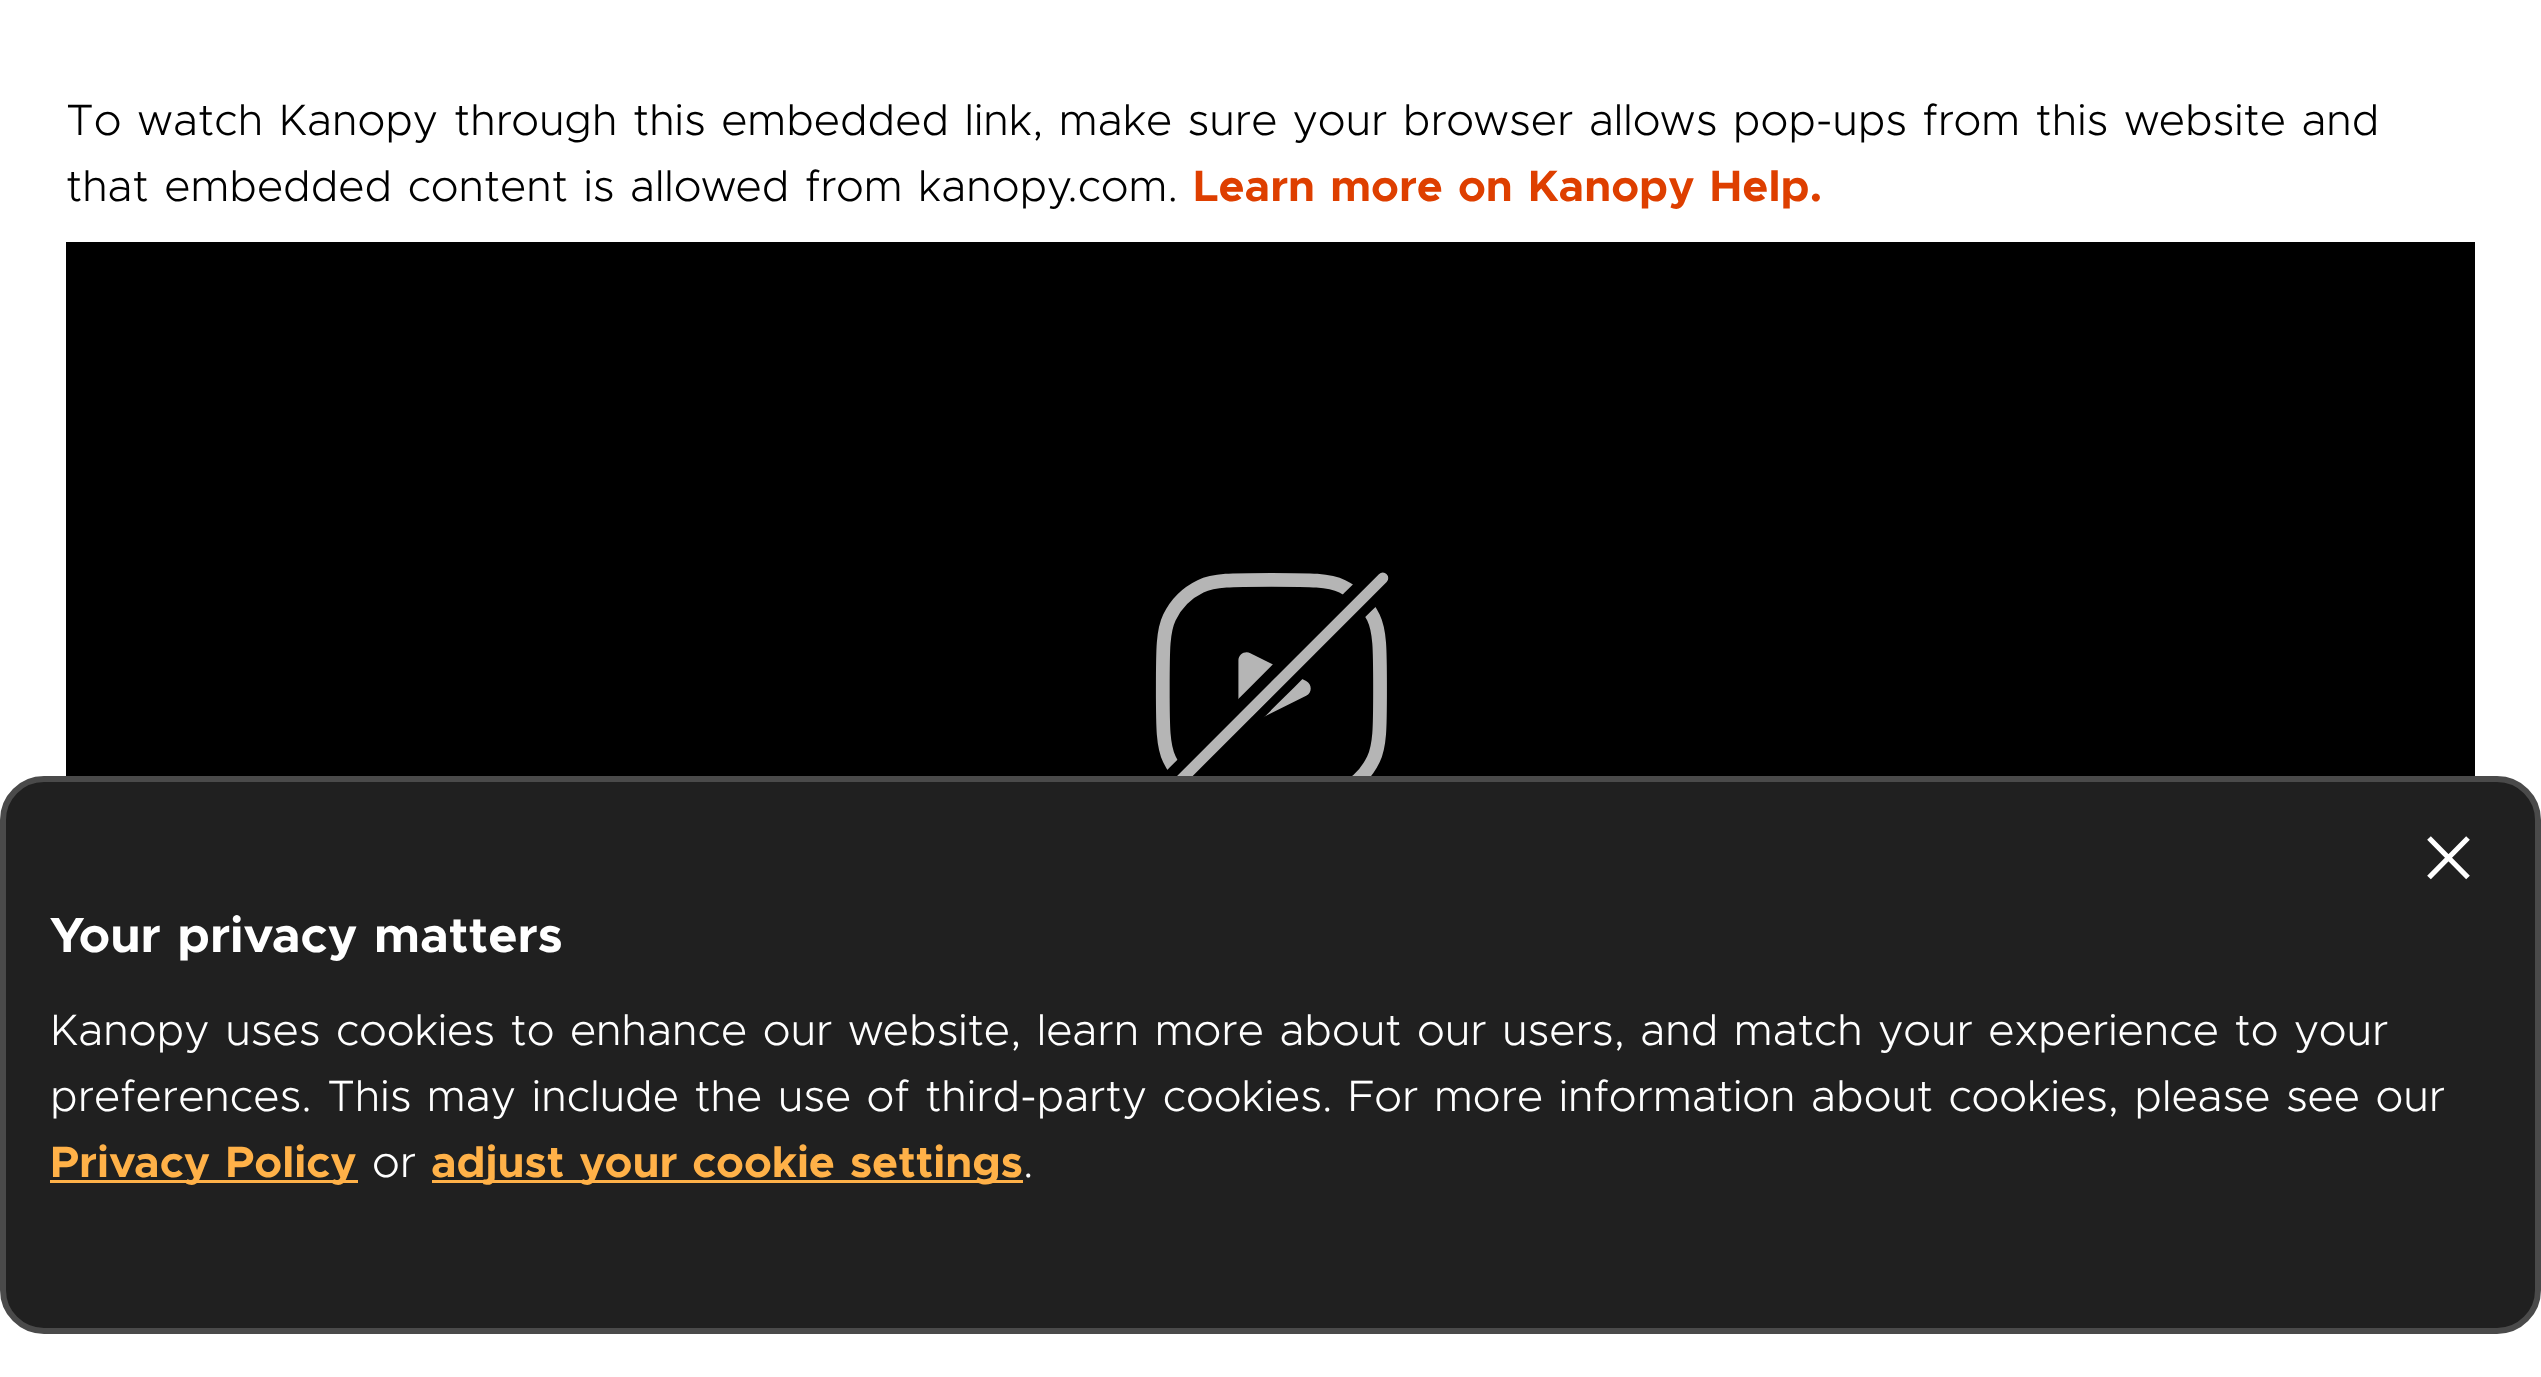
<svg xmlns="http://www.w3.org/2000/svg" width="2541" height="1377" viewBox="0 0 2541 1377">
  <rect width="100%" height="100%" fill="#fff"/>
  <path d="M66 242h2409v534H66z" fill="#000"/>
  <image x="1155" y="572" width="234" height="204" href="img/1.png"/>
  <rect x="3" y="779" width="2535" height="552" rx="41" fill="#202020" stroke="#4a4a4a" stroke-width="6"/>
  <path d="M2429 838L2468 877.5M2429 877.5L2468 838" fill="none" stroke="#fff" stroke-width="5.2"/>
  <path d="M50 1180h308v3H50z" fill="#ffb148"/>
  <path d="M432 1180h591v3H432z" fill="#ffb148"/>
  <g font-family="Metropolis" font-size="44" font-weight="300" fill="#000">
    <text x="66" y="135" word-spacing="2.75">To watch Kanopy through this embedded link, make sure your browser allows pop-ups from this website and</text>
    <text x="66" y="201" word-spacing="2.75">that embedded content is allowed from kanopy.com.</text>
  </g>
  <text x="1193" y="201" word-spacing="2.75" font-family="Metropolis" font-size="44" font-weight="bold" fill="#de3f00">Learn more on Kanopy Help.</text>
  <text x="50" y="952" word-spacing="2.75" font-family="Metropolis" font-size="49.5" font-weight="bold" fill="#fff">Your privacy matters</text>
  <g font-family="Metropolis" font-size="44" font-weight="300" fill="#fff">
    <text x="50" y="1045" word-spacing="2.75">Kanopy uses cookies to enhance our website, learn more about our users, and match your experience to your</text>
    <text x="50" y="1111" word-spacing="2.75">preferences. This may include the use of third-party cookies. For more information about cookies, please see our</text>
  </g>
  <text x="50" y="1177" word-spacing="2.75" font-family="Metropolis" font-size="44" font-weight="bold" fill="#ffb148">Privacy Policy</text>
  <text x="372" y="1177" font-family="Metropolis" font-size="44" font-weight="300" fill="#fff">or</text>
  <text x="431" y="1177" word-spacing="2.75" font-family="Metropolis" font-size="44" font-weight="bold" fill="#ffb148">adjust your cookie settings</text>
  <text x="1023" y="1177" font-family="Metropolis" font-size="44" font-weight="300" fill="#fff">.</text>
</svg>
